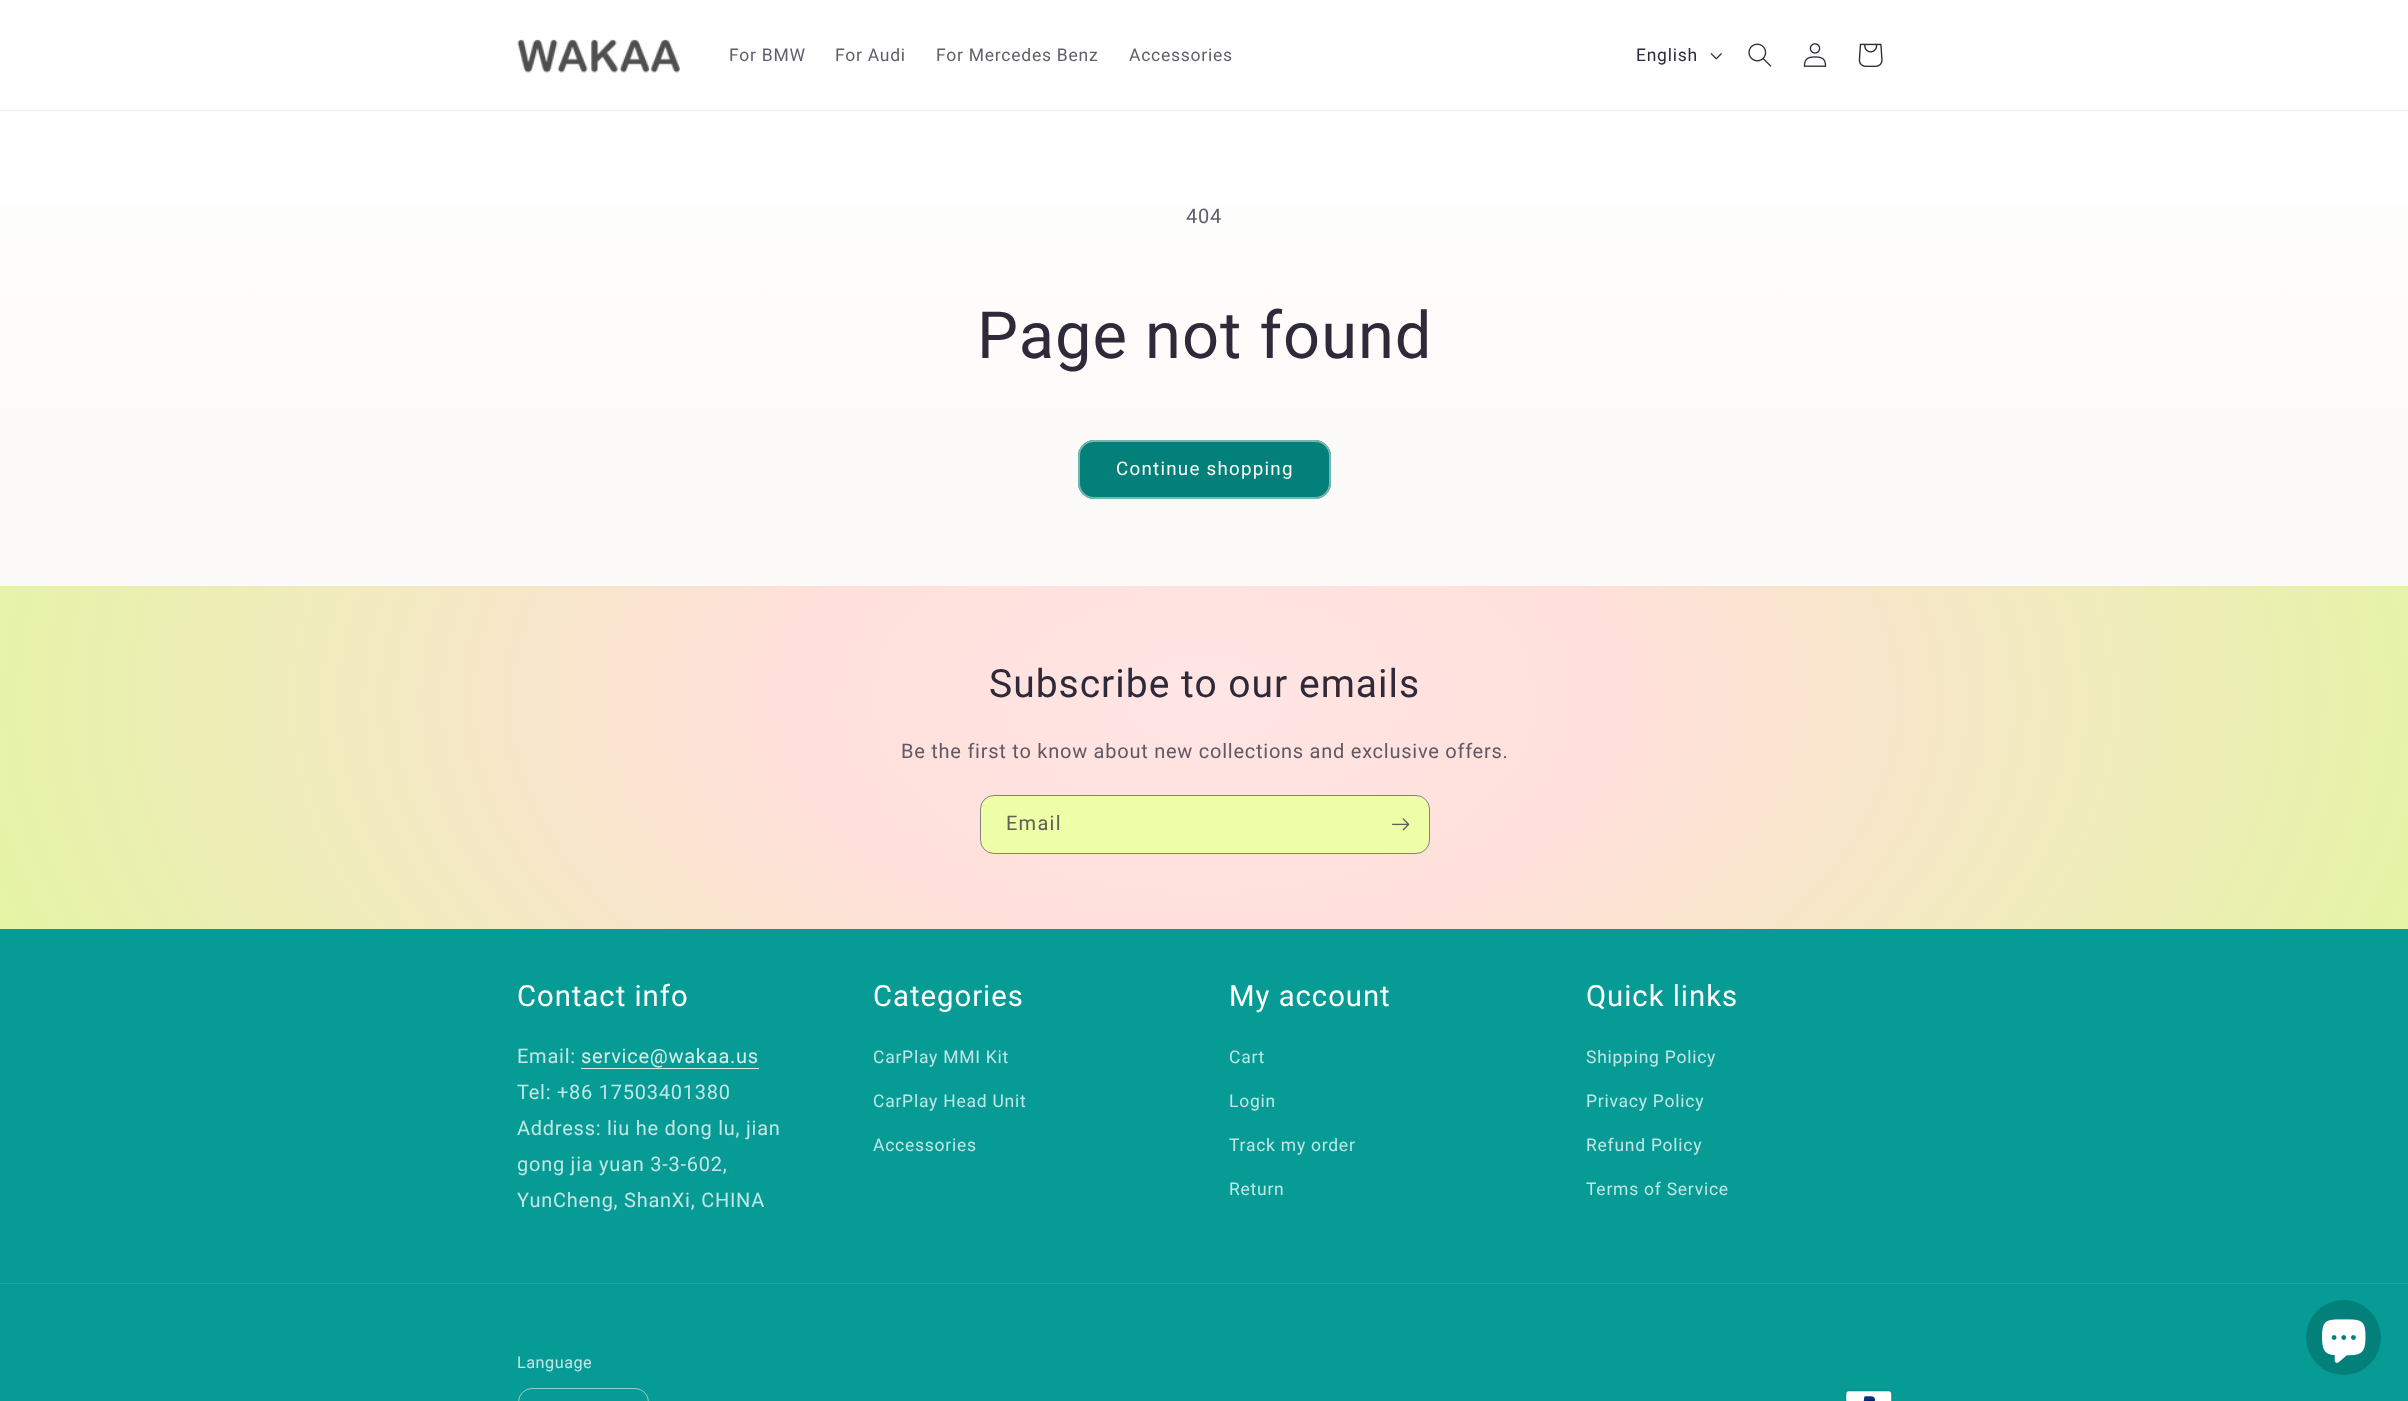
<svg xmlns="http://www.w3.org/2000/svg" width="2408" height="1401" viewBox="0 0 2408 1401">
  <defs>
    <linearGradient id="g1" gradientUnits="userSpaceOnUse" x1="1204" y1="0" x2="1204" y2="1401"><stop offset="0" stop-color="#fff"/><stop offset="1" stop-color="#f7f4ee"/></linearGradient>
    <radialGradient id="g2" gradientUnits="userSpaceOnUse" cx="0" cy="0" r="1" gradientTransform="matrix(1703 0 0 991 1204 701)"><stop offset="0" stop-color="#ffe5e5"/><stop offset="0.25" stop-color="#ffe0da"/><stop offset="1" stop-color="#d7ff89"/></radialGradient>
  </defs>
  <rect width="100%" height="100%" fill="#fff"/>
  <path d="M0 206h2408v380H0z" fill="url(#g1)"/>
  <path d="M0 110h2408v1H0z" fill="#ededee"/>
  <image x="517" y="39" width="163" height="34" href="img/1.png"/>
  <image x="1710" y="53" width="12" height="7" href="img/2.png"/>
  <image x="1748" y="43" width="24" height="24" href="img/3.png"/>
  <image x="1803" y="43" width="24" height="24" href="img/4.png"/>
  <image x="1858" y="43" width="25" height="24" href="img/5.png"/>
  <rect x="1078" y="440" width="253" height="59" rx="16" fill="#04807a"/>
  <rect x="1078.5" y="440.5" width="252" height="58" rx="15.5" fill="none" stroke="#04807a"/>
  <rect x="1079" y="441" width="251" height="57" rx="15" fill="none" stroke="#fdfbf773" stroke-width="2"/>
  <path d="M0 586h2408v343H0z" fill="url(#g2)"/>
  <rect x="981" y="796" width="448" height="57" rx="13" fill="#edffa7"/>
  <rect x="980.5" y="795.5" width="449" height="58" rx="13.5" fill="none" stroke="#2e2a398c"/>
  <image x="1392" y="818" width="18" height="13" href="img/6.png"/>
  <path d="M0 929h2408v472H0z" fill="#069c95"/>
  <path d="M581 1068h178v1H581z" fill="#d8ede8"/>
  <path d="M0 1283h2408v1H0z" fill="#1aa49d"/>
  <rect x="518.5" y="1388.5" width="130" height="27" rx="13.5" fill="none" stroke="#8fd2cf"/>
  <image x="1845" y="1390" width="48" height="11" href="img/7.png"/>
  <circle cx="2343.5" cy="1337.5" r="37.5" fill="#04807a"/>
  <image x="2322" y="1319" width="44" height="44" href="img/8.png"/>
  <g font-family="Roboto" font-size="17.5" letter-spacing="0.75" fill="#625f6a">
    <text x="729" y="61">For BMW</text>
    <text x="835" y="61">For Audi</text>
    <text x="936" y="61">For Mercedes Benz</text>
    <text x="1129" y="61">Accessories</text>
  </g>
  <text x="1636" y="61" font-family="Roboto" font-size="17.5" letter-spacing="0.75" fill="#2e2a39">English</text>
  <text x="1186" y="223" font-family="Roboto" font-size="20" letter-spacing="0.75" fill="#625f6a">404</text>
  <text x="977" y="358" font-family="Roboto" font-size="65" letter-spacing="1" fill="#2e2a39">Page not found</text>
  <text x="1116" y="475" font-family="Roboto" font-size="18.75" letter-spacing="1.25" fill="#fdfbf7">Continue shopping</text>
  <text x="989" y="697" font-family="Roboto" font-size="39" letter-spacing="1" fill="#2e2a39">Subscribe to our emails</text>
  <text x="901" y="758" font-family="Roboto" font-size="20" letter-spacing="0.75" fill="#625863">Be the first to know about new collections and exclusive offers.</text>
  <text x="1006" y="830" font-family="Roboto" font-size="20" letter-spacing="1.25" fill="#5e5f55">Email</text>
  <text x="517" y="1006" font-family="Roboto" font-size="29.25" letter-spacing="1" fill="#fff">Contact info</text>
  <text x="517" y="1063" font-family="Roboto" font-size="20" letter-spacing="0.75" fill="#c1e6e5">Email:</text>
  <text x="581" y="1063" font-family="Roboto" font-size="20" letter-spacing="0.75" fill="#d8ede8">service@wakaa.us</text>
  <g font-family="Roboto" font-size="20" letter-spacing="0.75" fill="#c1e6e5">
    <text x="517" y="1099">Tel: +86 17503401380</text>
    <text x="517" y="1135">Address: liu he dong lu, jian</text>
    <text x="517" y="1171">gong jia yuan 3-3-602,</text>
    <text x="517" y="1207">YunCheng, ShanXi, CHINA</text>
  </g>
  <text x="873" y="1006" font-family="Roboto" font-size="29.25" letter-spacing="1" fill="#fff">Categories</text>
  <g font-family="Roboto" font-size="17.5" letter-spacing="0.75" fill="#c1e6e5">
    <text x="873" y="1063">CarPlay MMI Kit</text>
    <text x="873" y="1107">CarPlay Head Unit</text>
    <text x="873" y="1151">Accessories</text>
  </g>
  <text x="1229" y="1006" font-family="Roboto" font-size="29.25" letter-spacing="1" fill="#fff">My account</text>
  <g font-family="Roboto" font-size="17.5" letter-spacing="0.75" fill="#c1e6e5">
    <text x="1229" y="1063">Cart</text>
    <text x="1229" y="1107">Login</text>
    <text x="1229" y="1151">Track my order</text>
    <text x="1229" y="1195">Return</text>
  </g>
  <text x="1586" y="1006" font-family="Roboto" font-size="29.25" letter-spacing="1" fill="#fff">Quick links</text>
  <g font-family="Roboto" font-size="17.5" letter-spacing="0.75" fill="#c1e6e5">
    <text x="1586" y="1063">Shipping Policy</text>
    <text x="1586" y="1107">Privacy Policy</text>
    <text x="1586" y="1151">Refund Policy</text>
    <text x="1586" y="1195">Terms of Service</text>
  </g>
  <text x="517" y="1368" font-family="Roboto" font-size="16.25" letter-spacing="0.5" fill="#c1e6e5">Language</text>
</svg>
